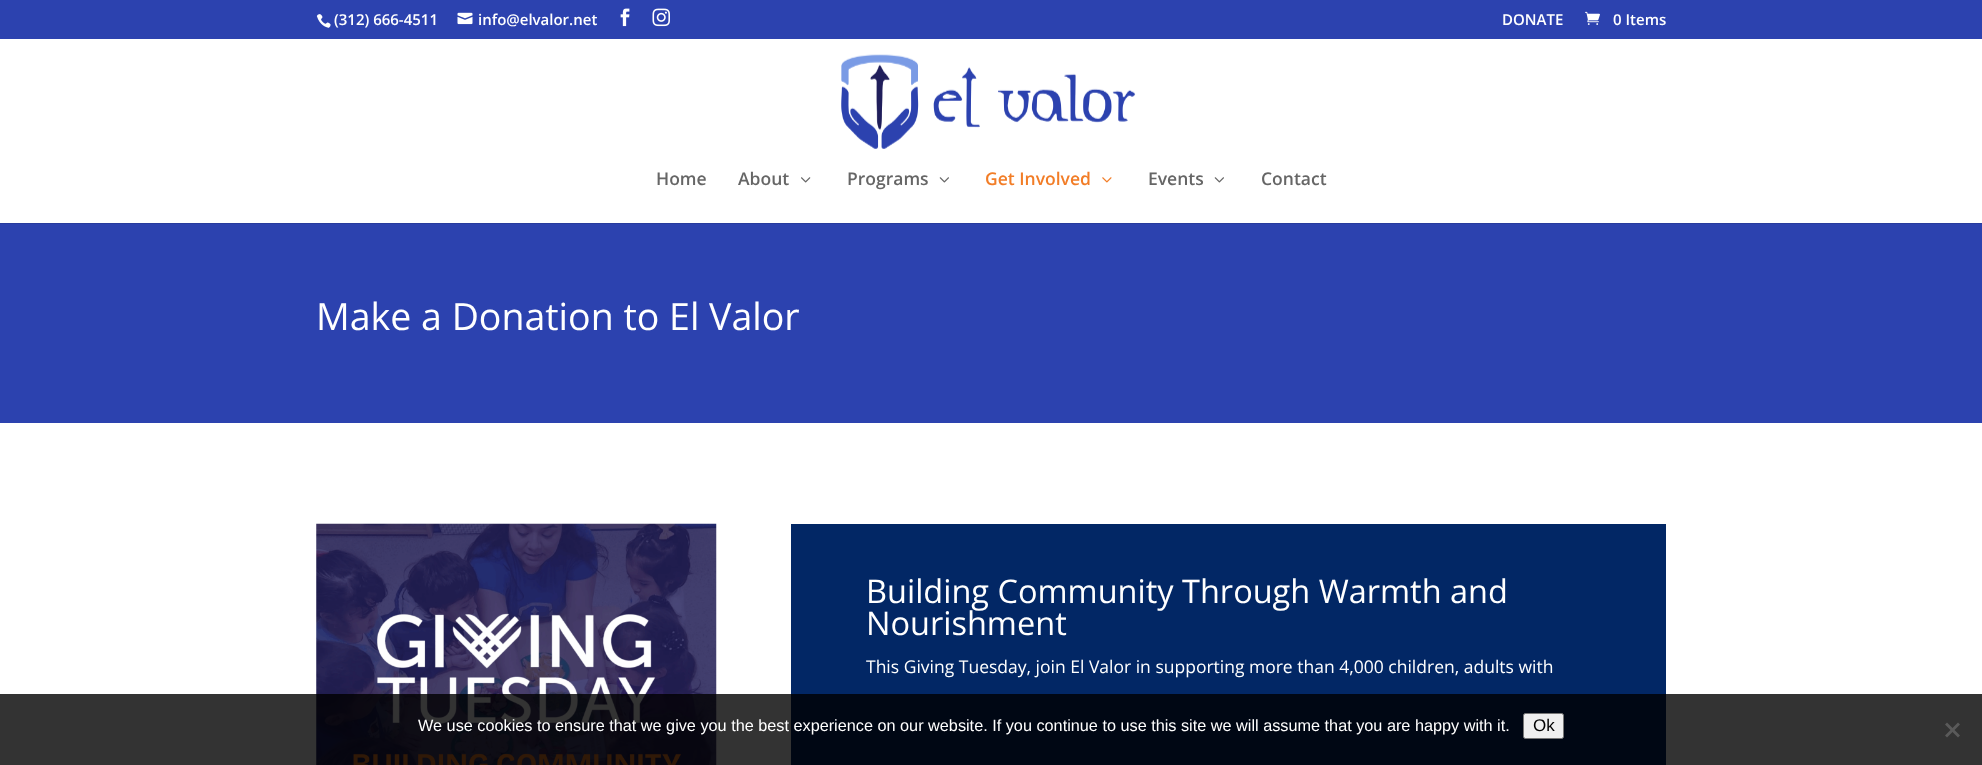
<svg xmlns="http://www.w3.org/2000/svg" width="1982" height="765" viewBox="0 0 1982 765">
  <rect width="100%" height="100%" fill="#2c42af"/>
  <image x="316" y="14" width="15" height="14" href="img/1.png"/>
  <image x="457" y="12" width="16" height="13" href="img/2.png"/>
  <image x="620" y="8" width="10" height="19" href="img/3.png"/>
  <image x="652" y="8" width="18" height="19" href="img/4.png"/>
  <image x="1585" y="11" width="15" height="14" href="img/5.png"/>
  <path d="M0 222V224H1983V40H1982V222Z" fill="#0000001a"/>
  <path d="M0 39h1982v184H0z" fill="#fff"/>
  <image x="841" y="54" width="295" height="95" href="img/6.png"/>
  <image x="801" y="177" width="10" height="6" href="img/7.png"/>
  <image x="939" y="177" width="10" height="6" href="img/8.png"/>
  <image x="1102" y="177" width="10" height="6" href="img/9.png"/>
  <image x="1214" y="177" width="10" height="6" href="img/8.png"/>
  <path d="M0 423h1982v342H0z" fill="#fff"/>
  <image x="316" y="523" width="401" height="242" href="img/10.png"/>
  <path d="M791 524h875v241H791z" fill="#022765"/>
  <path d="M0 694h1982v71H0z" fill="#000000cc"/>
  <rect x="1523.5" y="713.5" width="40" height="25" rx="2" fill="#efefef" stroke="#767676"/>
  <path d="M1958 722.5L1960 724.5L1947 737.5L1945 735.5Z" fill="#5a5a5a"/>
  <path d="M1945 724.5L1947 722.5L1960 735.5L1958 737.5Z" fill="#5a5a5a"/>
  <g font-family="Open Sans" font-size="15" font-weight="600" fill="#fff">
    <text x="334" y="25">(312) 666-4511</text>
    <text x="478" y="25">info@elvalor.net</text>
    <text x="1502" y="25">DONATE</text>
    <text x="1613" y="25">0 Items</text>
  </g>
  <g font-family="Open Sans" font-size="17.5" font-weight="600" fill="#666">
    <text x="656" y="185">Home</text>
    <text x="738" y="185">About</text>
    <text x="847" y="185">Programs</text>
  </g>
  <text x="985" y="185" font-family="Open Sans" font-size="17.5" font-weight="600" fill="#f27d27">Get Involved</text>
  <g font-family="Open Sans" font-size="17.5" font-weight="600" fill="#666">
    <text x="1148" y="185">Events</text>
    <text x="1261" y="185">Contact</text>
  </g>
  <text x="316" y="330" font-family="Open Sans" font-size="37.5" fill="#fff">Make a Donation to El Valor</text>
  <g font-family="Open Sans" font-size="32.5" fill="#fff">
    <text x="866" y="603">Building Community Through Warmth and</text>
    <text x="866" y="635">Nourishment</text>
  </g>
  <text x="866" y="673" font-family="Open Sans" font-size="17.5" fill="#fff">This Giving Tuesday, join El Valor in supporting more than 4,000 children, adults with</text>
  <text x="418" y="731" font-family="Liberation Sans" font-size="16.25" fill="#fff">We use cookies to ensure that we give you the best experience on our website. If you continue to use this site we will assume that you are happy with it.</text>
  <text x="1533" y="731" font-family="Liberation Sans" font-size="17" fill="#000">Ok</text>
</svg>
